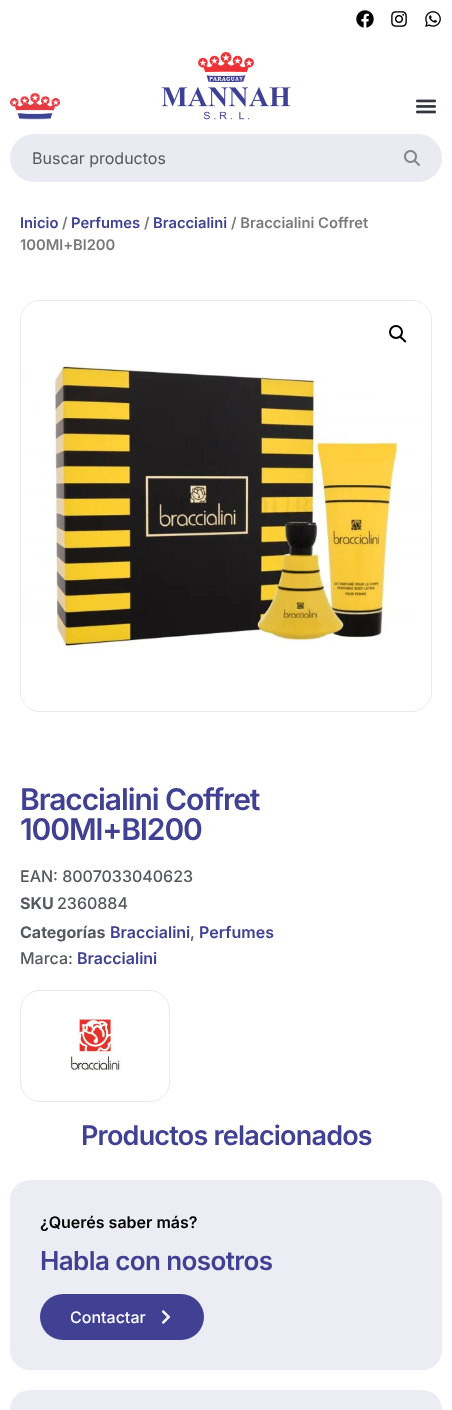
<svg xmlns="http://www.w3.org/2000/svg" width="452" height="1410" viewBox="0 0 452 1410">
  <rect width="100%" height="100%" fill="#fff"/>
  <image x="356" y="10" width="18" height="18" href="img/1.png"/>
  <image x="391" y="11" width="16" height="16" href="img/2.png"/>
  <image x="425" y="11" width="16" height="16" href="img/3.png"/>
  <image x="161" y="51" width="130" height="69" href="img/4.png"/>
  <image x="10" y="92" width="50" height="28" href="img/5.png"/>
  <image x="415" y="99" width="22" height="15" href="img/6.png"/>
  <rect x="10" y="134" width="432" height="48" rx="24" fill="#eaeaf3"/>
  <image x="404" y="150" width="16" height="16" href="img/7.png"/>
  <rect x="20.5" y="300.5" width="411" height="411" rx="19.5" fill="none" stroke="#e9e9e9"/>
  <image x="21" y="301" width="410" height="409" href="img/8.png"/>
  <circle cx="396" cy="332" r="6" fill="none" stroke="#000" stroke-width="2"/>
  <path d="M400 336.5C401.5 335.5 403 338 403.5 338.5C404.5 339.5 407 341 406 342C404.5 343.5 403 340.5 402.5 340C401.5 339.5 399 337.5 400 336.5Z" fill="#000"/>
  <rect x="20.5" y="990.5" width="149" height="111" rx="19.5" fill="none" stroke="#e9e9e9"/>
  <image x="70" y="1018" width="52" height="53" href="img/9.png"/>
  <rect x="10" y="1180" width="432" height="190" rx="20" fill="#ececf4"/>
  <rect x="40" y="1294" width="164" height="46" rx="23" fill="#414193"/>
  <image x="161" y="1310" width="10" height="14" href="img/10.png"/>
  <rect x="10" y="1390" width="432" height="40" rx="20" fill="#ececf4"/>
  <text x="32" y="164" font-family="Inter" font-size="16" fill="#54595f">Buscar productos</text>
  <text x="20" y="228" font-family="Inter" font-size="14.75" font-weight="600" fill="#414193">Inicio</text>
  <text x="62" y="228" font-family="Inter" font-size="14.75" font-weight="600" fill="#7a7a7a">/</text>
  <text x="71" y="228" font-family="Inter" font-size="14.75" font-weight="600" fill="#414193">Perfumes</text>
  <text x="144" y="228" font-family="Inter" font-size="14.75" font-weight="600" fill="#7a7a7a">/</text>
  <text x="153" y="228" font-family="Inter" font-size="14.75" font-weight="600" fill="#414193">Braccialini</text>
  <g font-family="Inter" font-size="14.75" font-weight="600" fill="#7a7a7a">
    <text x="231" y="228">/ Braccialini Coffret</text>
    <text x="20" y="250">100Ml+Bl200</text>
  </g>
  <g font-family="Inter" font-size="30" font-weight="600" letter-spacing="-1.1" fill="#414193">
    <text x="20" y="810">Braccialini Coffret</text>
    <text x="20" y="840">100Ml+Bl200</text>
  </g>
  <text x="20" y="882" font-family="Inter" font-size="16" font-weight="500" fill="#54595f">EAN: 8007033040623</text>
  <text x="20" y="909" font-family="Inter" font-size="16" font-weight="bold" fill="#54595f">SKU</text>
  <text x="57" y="909" font-family="Inter" font-size="16" font-weight="500" fill="#54595f">2360884</text>
  <text x="20" y="938" font-family="Inter" font-size="16" font-weight="bold" fill="#54595f">Categorías</text>
  <text x="110" y="938" font-family="Inter" font-size="16" font-weight="600" fill="#414193">Braccialini</text>
  <text x="190" y="938" font-family="Inter" font-size="16" font-weight="500" fill="#54595f">,</text>
  <text x="199" y="938" font-family="Inter" font-size="16" font-weight="600" fill="#414193">Perfumes</text>
  <text x="20" y="964" font-family="Inter" font-size="16" font-weight="500" fill="#54595f">Marca:</text>
  <text x="77" y="964" font-family="Inter" font-size="16" font-weight="600" fill="#414193">Braccialini</text>
  <text x="81" y="1145" font-family="Inter" font-size="27" font-weight="600" letter-spacing="-0.8" fill="#414193">Productos relacionados</text>
  <text x="40" y="1228" font-family="Inter" font-size="16" font-weight="600" fill="#000">¿Querés saber más?</text>
  <text x="40" y="1270" font-family="Inter" font-size="26" font-weight="600" letter-spacing="-0.6" fill="#414193">Habla con nosotros</text>
  <text x="70" y="1323" font-family="Inter" font-size="16" font-weight="500" fill="#fff">Contactar</text>
</svg>
